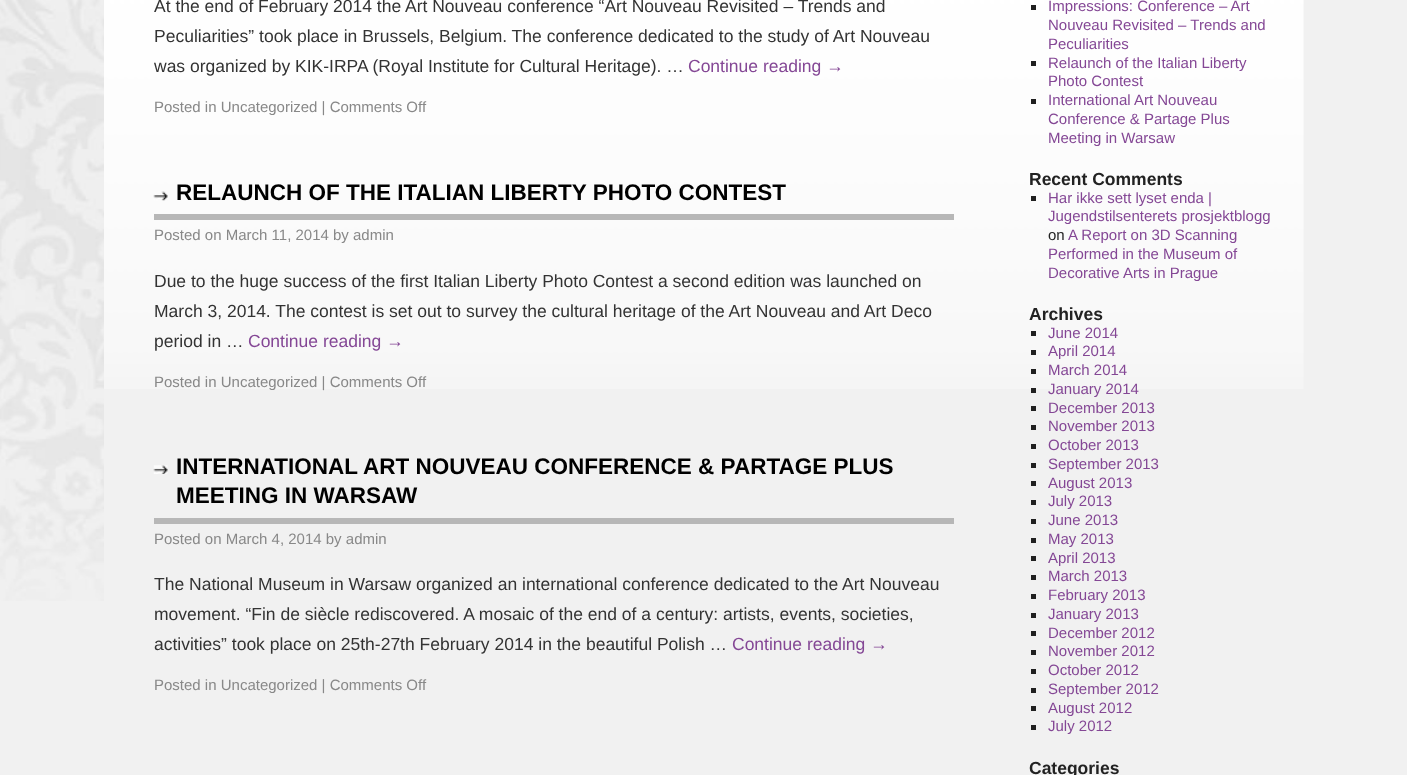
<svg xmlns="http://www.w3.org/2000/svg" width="1407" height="775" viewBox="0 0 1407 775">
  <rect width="100%" height="100%" fill="#f1f1f1"/>
  <image x="0" y="0" width="104" height="601" href="img/1.png"/>
  <image x="104" y="0" width="1200" height="389" href="img/2.png"/>
  <image x="153" y="191" width="15" height="10" href="img/3.png"/>
  <path d="M154 214h800v6H154z" fill="#b7b7b7"/>
  <image x="153" y="465" width="15" height="9" href="img/4.png"/>
  <path d="M154 518h800v6H154z" fill="#b7b7b7"/>
  <path d="M1031 5h5v5H1031z" fill="#202020"/>
  <path d="M1031 61h5v5H1031z" fill="#202020"/>
  <path d="M1031 99h5v5H1031z" fill="#202020"/>
  <path d="M1031 196h5v5H1031z" fill="#202020"/>
  <path d="M1031 331h5v5H1031z" fill="#202020"/>
  <path d="M1031 350h5v5H1031z" fill="#202020"/>
  <path d="M1031 369h5v5H1031z" fill="#202020"/>
  <path d="M1031 388h5v5H1031z" fill="#202020"/>
  <path d="M1031 406h5v5H1031z" fill="#202020"/>
  <path d="M1031 425h5v5H1031z" fill="#202020"/>
  <path d="M1031 444h5v5H1031z" fill="#202020"/>
  <path d="M1031 463h5v5H1031z" fill="#202020"/>
  <path d="M1031 481h5v5H1031z" fill="#202020"/>
  <path d="M1031 500h5v5H1031z" fill="#202020"/>
  <path d="M1031 519h5v5H1031z" fill="#202020"/>
  <path d="M1031 538h5v5H1031z" fill="#202020"/>
  <path d="M1031 556h5v5H1031z" fill="#202020"/>
  <path d="M1031 575h5v5H1031z" fill="#202020"/>
  <path d="M1031 594h5v5H1031z" fill="#202020"/>
  <path d="M1031 613h5v5H1031z" fill="#202020"/>
  <path d="M1031 631h5v5H1031z" fill="#202020"/>
  <path d="M1031 650h5v5H1031z" fill="#202020"/>
  <path d="M1031 669h5v5H1031z" fill="#202020"/>
  <path d="M1031 688h5v5H1031z" fill="#202020"/>
  <path d="M1031 706h5v5H1031z" fill="#202020"/>
  <path d="M1031 725h5v5H1031z" fill="#202020"/>
  <g font-family="Liberation Sans" font-size="17.5" fill="#333">
    <text x="154" y="12">At the end of February 2014 the Art Nouveau conference “Art Nouveau Revisited – Trends and</text>
    <text x="154" y="42">Peculiarities” took place in Brussels, Belgium. The conference dedicated to the study of Art Nouveau</text>
    <text x="154" y="72">was organized by KIK-IRPA (Royal Institute for Cultural Heritage). …</text>
  </g>
  <text x="688" y="72" font-family="Liberation Sans" font-size="17.5" fill="#844795">Continue reading →</text>
  <text x="154" y="112" font-family="Liberation Sans" font-size="15" fill="#888">Posted in Uncategorized | Comments Off</text>
  <text x="176" y="200" font-family="Liberation Sans" font-size="22.5" font-weight="bold" fill="#000">RELAUNCH OF THE ITALIAN LIBERTY PHOTO CONTEST</text>
  <text x="154" y="240" font-family="Liberation Sans" font-size="15" fill="#888">Posted on March 11, 2014 by admin</text>
  <g font-family="Liberation Sans" font-size="17.5" fill="#333">
    <text x="154" y="287">Due to the huge success of the first Italian Liberty Photo Contest a second edition was launched on</text>
    <text x="154" y="317">March 3, 2014. The contest is set out to survey the cultural heritage of the Art Nouveau and Art Deco</text>
    <text x="154" y="347">period in …</text>
  </g>
  <text x="248" y="347" font-family="Liberation Sans" font-size="17.5" fill="#844795">Continue reading →</text>
  <text x="154" y="387" font-family="Liberation Sans" font-size="15" fill="#888">Posted in Uncategorized | Comments Off</text>
  <g font-family="Liberation Sans" font-size="22.5" font-weight="bold" fill="#000">
    <text x="176" y="474">INTERNATIONAL ART NOUVEAU CONFERENCE &amp; PARTAGE PLUS</text>
    <text x="176" y="503">MEETING IN WARSAW</text>
  </g>
  <text x="154" y="544" font-family="Liberation Sans" font-size="15" fill="#888">Posted on March 4, 2014 by admin</text>
  <g font-family="Liberation Sans" font-size="17.5" fill="#333">
    <text x="154" y="590">The National Museum in Warsaw organized an international conference dedicated to the Art Nouveau</text>
    <text x="154" y="620">movement. “Fin de siècle rediscovered. A mosaic of the end of a century: artists, events, societies,</text>
    <text x="154" y="650">activities” took place on 25th-27th February 2014 in the beautiful Polish …</text>
  </g>
  <text x="732" y="650" font-family="Liberation Sans" font-size="17.5" fill="#844795">Continue reading →</text>
  <text x="154" y="690" font-family="Liberation Sans" font-size="15" fill="#888">Posted in Uncategorized | Comments Off</text>
  <g font-family="Liberation Sans" font-size="15" fill="#844795">
    <text x="1048" y="11">Impressions: Conference – Art</text>
    <text x="1048" y="30">Nouveau Revisited – Trends and</text>
    <text x="1048" y="49">Peculiarities</text>
    <text x="1048" y="68">Relaunch of the Italian Liberty</text>
    <text x="1048" y="86">Photo Contest</text>
    <text x="1048" y="105">International Art Nouveau</text>
    <text x="1048" y="124">Conference &amp; Partage Plus</text>
    <text x="1048" y="143">Meeting in Warsaw</text>
  </g>
  <text x="1029" y="185" font-family="Liberation Sans" font-size="17.5" font-weight="bold" fill="#222">Recent Comments</text>
  <g font-family="Liberation Sans" font-size="15" fill="#844795">
    <text x="1048" y="203">Har ikke sett lyset enda |</text>
    <text x="1048" y="221">Jugendstilsenterets prosjektblogg</text>
  </g>
  <text x="1048" y="240" font-family="Liberation Sans" font-size="15" fill="#222">on</text>
  <g font-family="Liberation Sans" font-size="15" fill="#844795">
    <text x="1068" y="240">A Report on 3D Scanning</text>
    <text x="1048" y="259">Performed in the Museum of</text>
    <text x="1048" y="278">Decorative Arts in Prague</text>
  </g>
  <text x="1029" y="320" font-family="Liberation Sans" font-size="17.5" font-weight="bold" fill="#222">Archives</text>
  <g font-family="Liberation Sans" font-size="15" fill="#844795">
    <text x="1048" y="338">June 2014</text>
    <text x="1048" y="356">April 2014</text>
    <text x="1048" y="375">March 2014</text>
    <text x="1048" y="394">January 2014</text>
    <text x="1048" y="413">December 2013</text>
    <text x="1048" y="431">November 2013</text>
    <text x="1048" y="450">October 2013</text>
    <text x="1048" y="469">September 2013</text>
    <text x="1048" y="488">August 2013</text>
    <text x="1048" y="506">July 2013</text>
    <text x="1048" y="525">June 2013</text>
    <text x="1048" y="544">May 2013</text>
    <text x="1048" y="563">April 2013</text>
    <text x="1048" y="581">March 2013</text>
    <text x="1048" y="600">February 2013</text>
    <text x="1048" y="619">January 2013</text>
    <text x="1048" y="638">December 2012</text>
    <text x="1048" y="656">November 2012</text>
    <text x="1048" y="675">October 2012</text>
    <text x="1048" y="694">September 2012</text>
    <text x="1048" y="713">August 2012</text>
    <text x="1048" y="731">July 2012</text>
  </g>
  <text x="1029" y="774" font-family="Liberation Sans" font-size="17.5" font-weight="bold" fill="#222">Categories</text>
</svg>
